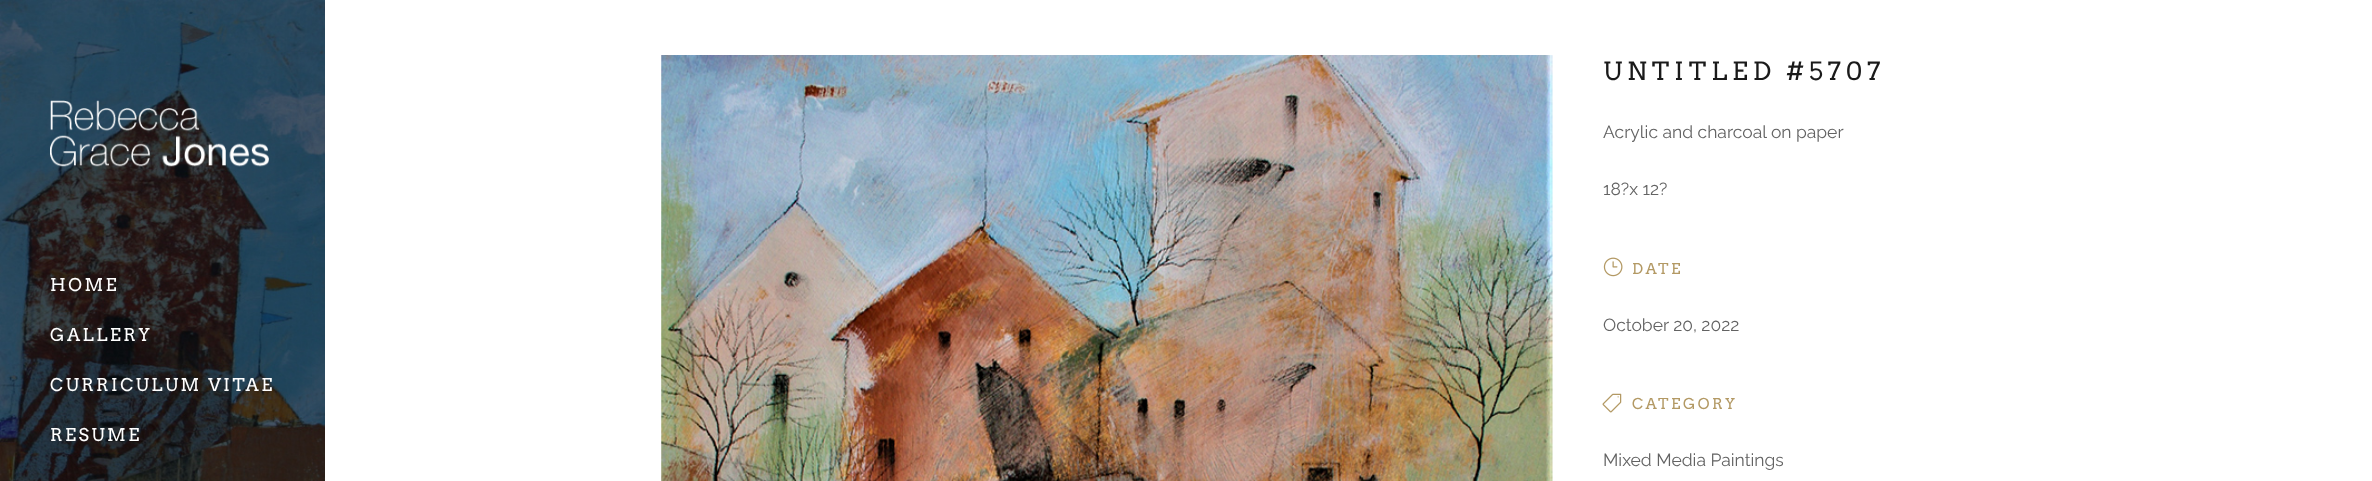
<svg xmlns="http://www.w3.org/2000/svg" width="2372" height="481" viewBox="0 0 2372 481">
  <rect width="100%" height="100%" fill="#fff"/>
  <image x="0" y="0" width="325" height="481" href="img/1.png"/>
  <image x="50" y="100" width="219" height="67" href="img/2.png"/>
  <image x="661" y="55" width="892" height="426" href="img/3.png"/>
  <image x="1603" y="257" width="20" height="20" href="img/4.png"/>
  <image x="1602" y="393" width="20" height="20" href="img/5.png"/>
  <g font-family="Arvo" font-size="17.5" letter-spacing="2.5" fill="#fff">
    <text x="50" y="291">HOME</text>
    <text x="50" y="341">GALLERY</text>
    <text x="50" y="391">CURRICULUM VITAE</text>
    <text x="50" y="441">RESUME</text>
  </g>
  <text x="1603" y="80" font-family="Arvo" font-size="25" letter-spacing="5" fill="#1a1a1a">UNTITLED #5707</text>
  <g font-family="Raleway" font-size="17.5" fill="#636363">
    <text x="1603" y="138">Acrylic and charcoal on paper</text>
    <text x="1603" y="195">18?x 12?</text>
  </g>
  <text x="1632" y="274" font-family="Arvo" font-size="15" letter-spacing="2.5" fill="#b39964">DATE</text>
  <text x="1603" y="331" font-family="Raleway" font-size="17.5" fill="#636363">October 20, 2022</text>
  <text x="1632" y="409" font-family="Arvo" font-size="15" letter-spacing="2.5" fill="#b39964">CATEGORY</text>
  <text x="1603" y="466" font-family="Raleway" font-size="17.5" fill="#636363">Mixed Media Paintings</text>
</svg>
